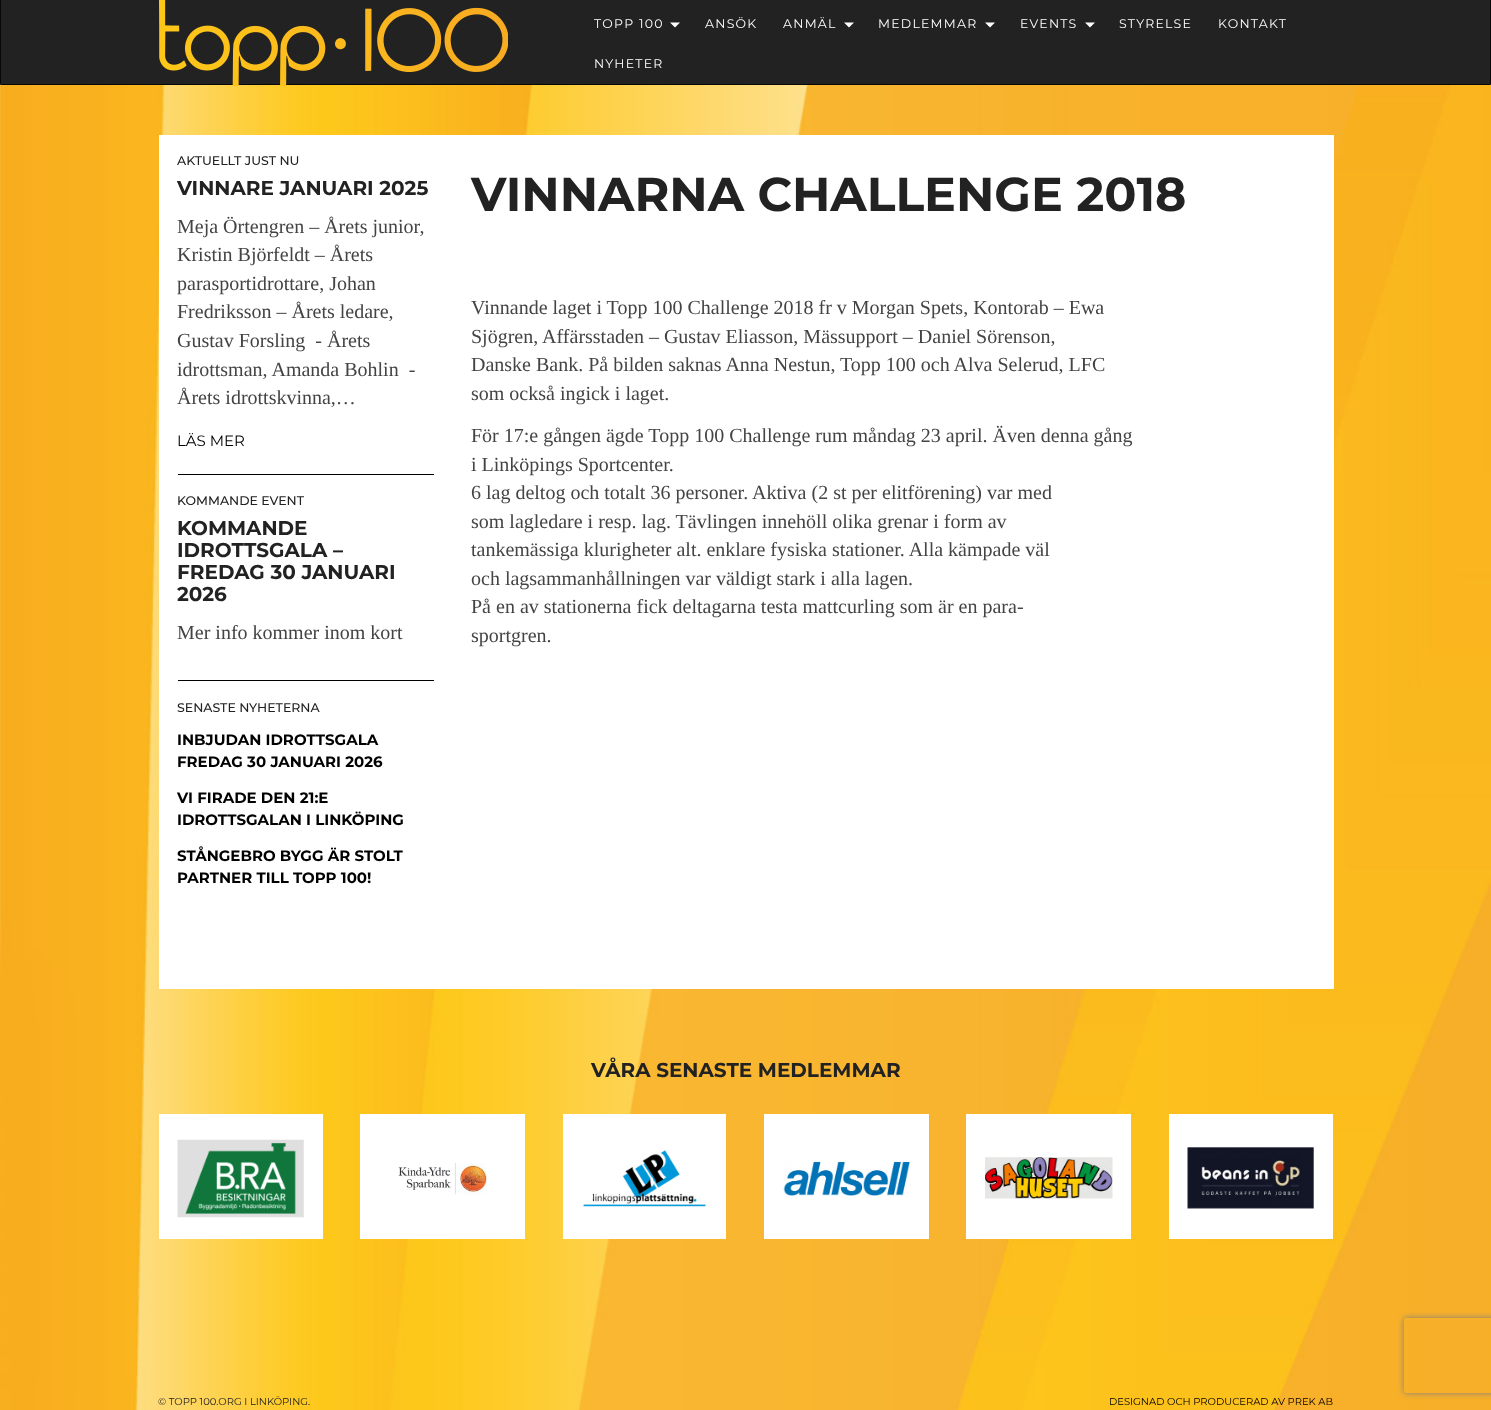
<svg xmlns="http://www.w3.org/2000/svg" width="1491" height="1410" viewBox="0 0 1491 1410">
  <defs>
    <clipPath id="clip1"><path d="M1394 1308H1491V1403H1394ZM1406.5 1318H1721.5C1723 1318 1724 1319 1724 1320.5V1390.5C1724 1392 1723 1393 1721.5 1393H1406.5C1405 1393 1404 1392 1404 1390.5V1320.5C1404 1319 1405 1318 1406.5 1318Z" clip-rule="evenodd"/></clipPath>
  </defs>
  <rect width="100%" height="100%" fill="#fff"/>
  <image x="0" y="85" width="1491" height="1325" href="img/1.png"/>
  <path d="M0.5 -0.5h1490v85H0.5z" fill="#222" stroke="#080808"/>
  <image x="159" y="0" width="349" height="86" href="img/2.png"/>
  <path d="M670 22.5H680L675 27.5Z" fill="#fff"/>
  <path d="M844 22.5H854L849 27.5Z" fill="#fff"/>
  <path d="M985 22.5H995L990 27.5Z" fill="#fff"/>
  <path d="M1085 22.5H1095L1090 27.5Z" fill="#fff"/>
  <path d="M159 135h1175v854H159z" fill="#fff"/>
  <path d="M178 474h256v1H178z" fill="#000"/>
  <path d="M178 680h256v1H178z" fill="#000"/>
  <path d="M159 1114h164v125H159z" fill="#fff"/>
  <image x="177" y="1139" width="127" height="79" href="img/3.png"/>
  <path d="M360 1114h165v125H360z" fill="#fff"/>
  <image x="398" y="1163" width="89" height="32" href="img/4.png"/>
  <path d="M563 1114h163v125H563z" fill="#fff"/>
  <image x="583" y="1150" width="123" height="57" href="img/5.png"/>
  <path d="M764 1114h165v125H764z" fill="#fff"/>
  <image x="783" y="1161" width="127" height="35" href="img/6.png"/>
  <path d="M966 1114h165v125H966z" fill="#fff"/>
  <image x="985" y="1157" width="128" height="42" href="img/7.png"/>
  <path d="M1169 1114h164v125H1169z" fill="#fff"/>
  <image x="1187" y="1147" width="127" height="62" href="img/8.png"/>
  <g clip-path="url(#clip1)">
    <rect x="1404" y="1318" width="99" height="75" rx="2.5" fill="#808080" filter="blur(3px)"/>
  </g>
  <g font-family="Montserrat" font-size="12.5" letter-spacing="1.25" fill="#fff">
    <text x="594" y="28">TOPP 100</text>
    <text x="705" y="28">ANSÖK</text>
    <text x="783" y="28">ANMÄL</text>
    <text x="878" y="28">MEDLEMMAR</text>
    <text x="1020" y="28">EVENTS</text>
    <text x="1119" y="28">STYRELSE</text>
    <text x="1218" y="28">KONTAKT</text>
    <text x="594" y="68">NYHETER</text>
  </g>
  <text x="177" y="165" font-family="Montserrat" font-size="12.5" font-weight="500" fill="#222">AKTUELLT JUST NU</text>
  <text x="177" y="195" font-family="Montserrat" font-size="20" font-weight="bold" fill="#222">VINNARE JANUARI 2025</text>
  <g font-family="Liberation Serif" font-size="20" fill="#444">
    <text x="177" y="233">Meja Örtengren – Årets junior,</text>
    <text x="177" y="261">Kristin Björfeldt – Årets</text>
    <text x="177" y="290">parasportidrottare, Johan</text>
    <text x="177" y="318">Fredriksson – Årets ledare,</text>
    <text x="177" y="347" xml:space="preserve">Gustav Forsling  - Årets</text>
    <text x="177" y="376" xml:space="preserve">idrottsman, Amanda Bohlin  -</text>
    <text x="177" y="404">Årets idrottskvinna,…</text>
  </g>
  <text x="177" y="446" font-family="Montserrat" font-size="15" fill="#000">LÄS MER</text>
  <text x="177" y="505" font-family="Montserrat" font-size="12.5" font-weight="500" fill="#222">KOMMANDE EVENT</text>
  <g font-family="Montserrat" font-size="20" font-weight="bold" fill="#222">
    <text x="177" y="535">KOMMANDE</text>
    <text x="177" y="557">IDROTTSGALA –</text>
    <text x="177" y="579">FREDAG 30 JANUARI</text>
    <text x="177" y="601">2026</text>
  </g>
  <text x="177" y="639" font-family="Liberation Serif" font-size="20" fill="#444">Mer info kommer inom kort</text>
  <text x="177" y="712" font-family="Montserrat" font-size="12.5" font-weight="500" fill="#222">SENASTE NYHETERNA</text>
  <g font-family="Montserrat" font-size="15" font-weight="bold" fill="#000">
    <text x="177" y="745">INBJUDAN IDROTTSGALA</text>
    <text x="177" y="767">FREDAG 30 JANUARI 2026</text>
    <text x="177" y="803">VI FIRADE DEN 21:E</text>
    <text x="177" y="825">IDROTTSGALAN I LINKÖPING</text>
    <text x="177" y="861">STÅNGEBRO BYGG ÄR STOLT</text>
    <text x="177" y="883">PARTNER TILL TOPP 100!</text>
  </g>
  <text x="471" y="211" font-family="Montserrat" font-size="47.5" font-weight="bold" fill="#222">VINNARNA CHALLENGE 2018</text>
  <g font-family="Liberation Serif" font-size="20" fill="#444">
    <text x="471" y="314">Vinnande laget i Topp 100 Challenge 2018 fr v Morgan Spets, Kontorab – Ewa</text>
    <text x="471" y="343">Sjögren, Affärsstaden – Gustav Eliasson, Mässupport – Daniel Sörenson,</text>
    <text x="471" y="371">Danske Bank. På bilden saknas Anna Nestun, Topp 100 och Alva Selerud, LFC</text>
    <text x="471" y="400">som också ingick i laget.</text>
    <text x="471" y="442">För 17:e gången ägde Topp 100 Challenge rum måndag 23 april. Även denna gång</text>
    <text x="471" y="471">i Linköpings Sportcenter.</text>
    <text x="471" y="499">6 lag deltog och totalt 36 personer. Aktiva (2 st per elitförening) var med</text>
    <text x="471" y="528">som lagledare i resp. lag. Tävlingen innehöll olika grenar i form av</text>
    <text x="471" y="556">tankemässiga klurigheter alt. enklare fysiska stationer. Alla kämpade väl</text>
    <text x="471" y="585">och lagsammanhållningen var väldigt stark i alla lagen.</text>
    <text x="471" y="613">På en av stationerna fick deltagarna testa mattcurling som är en para-</text>
    <text x="471" y="642">sportgren.</text>
  </g>
  <text x="591" y="1077" font-family="Montserrat" font-size="20" font-weight="bold" fill="#222">VÅRA SENASTE MEDLEMMAR</text>
  <text x="158" y="1405" font-family="Montserrat" font-size="10" fill="#222">© TOPP 100.ORG I LINKÖPING.</text>
  <text x="1109" y="1405" font-family="Montserrat" font-size="10" fill="#000">DESIGNAD OCH PRODUCERAD AV PREK AB</text>
</svg>
